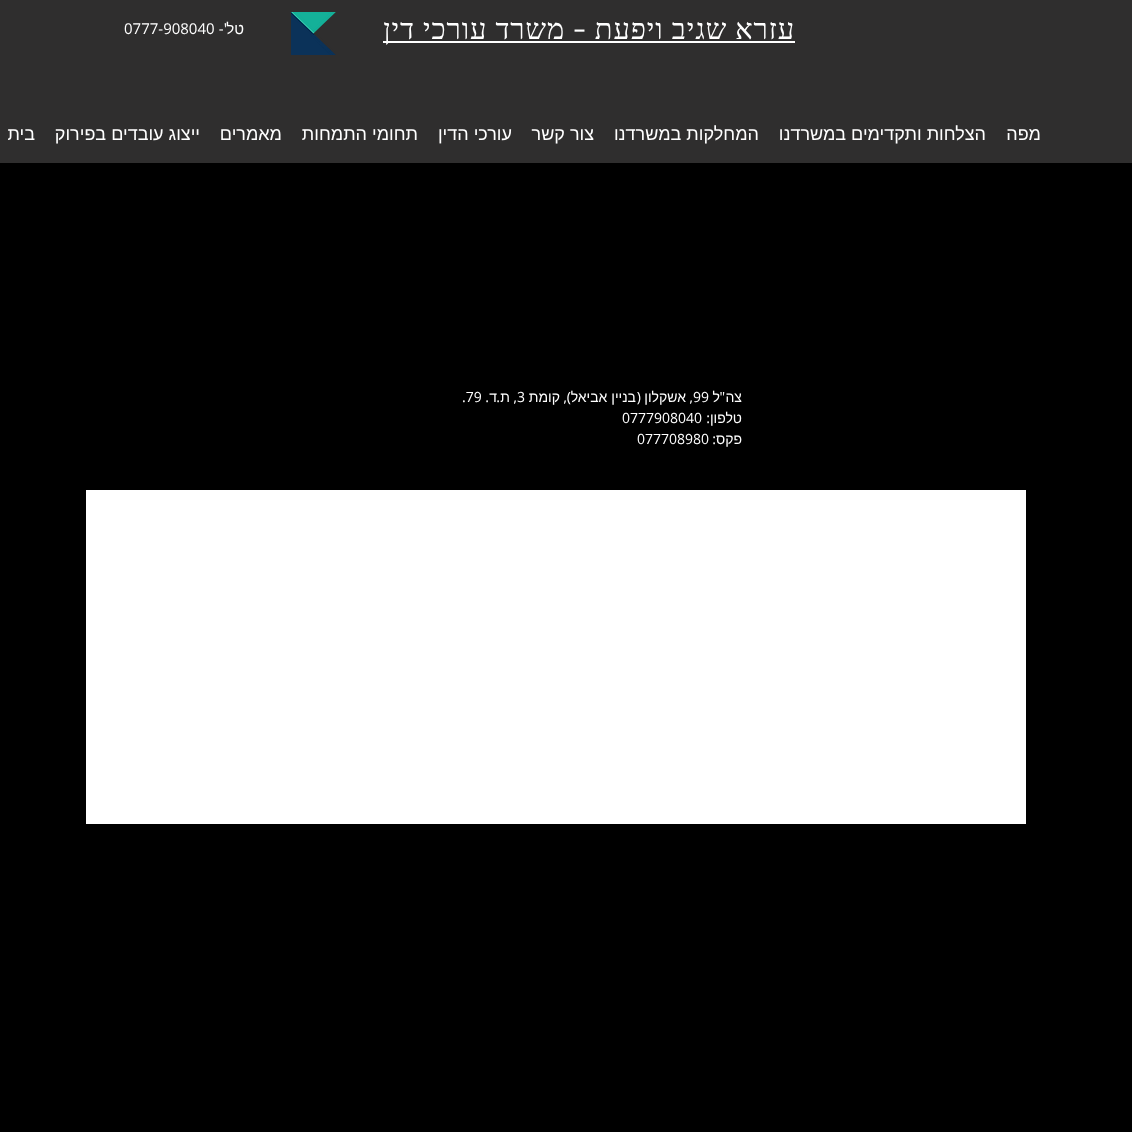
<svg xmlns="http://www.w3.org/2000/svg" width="1132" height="1132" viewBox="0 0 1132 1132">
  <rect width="100%" height="100%" fill="#000"/>
  <path d="M0 0h1132v163H0z" fill="#2f2e2e"/>
  <path d="M383 41h412v2H383z" fill="#fff"/>
  <image x="291" y="12" width="45" height="43" href="img/1.png"/>
  <path d="M86 490h940v334H86z" fill="#fff"/>
  <text x="795" y="39" font-family="Liberation Serif" font-size="29" letter-spacing="0.9" direction="rtl" fill="#fff">עזרא שגיב ויפעת</text>
  <text x="586" y="39" font-family="Noticia Text" font-size="29" letter-spacing="0.9" direction="rtl" fill="#fff">-</text>
  <text x="565" y="39" font-family="Liberation Serif" font-size="29" letter-spacing="0.9" direction="rtl" fill="#fff">משרד עורכי דין</text>
  <text x="244" y="34" font-family="Liberation Sans" font-size="15" direction="rtl" fill="#fff">טל</text>
  <text x="227" y="34" font-family="Open Sans" font-size="15" direction="rtl" fill="#fff">'-</text>
  <text x="124" y="34" font-family="Open Sans" font-size="15" fill="#fff">0777-908040</text>
  <g font-family="Liberation Sans" font-size="18" direction="rtl" fill="#fff">
    <text x="1041" y="140">מפה</text>
    <text x="986" y="140">הצלחות ותקדימים במשרדנו</text>
    <text x="759" y="140">המחלקות במשרדנו</text>
    <text x="594" y="140">צור קשר</text>
    <text x="512" y="140">עורכי הדין</text>
    <text x="418" y="140">תחומי התמחות</text>
    <text x="282" y="140">מאמרים</text>
    <text x="200" y="140">ייצוג עובדים בפירוק</text>
    <text x="35" y="140">בית</text>
  </g>
  <text x="742" y="402" font-family="Liberation Sans" font-size="14" direction="rtl" fill="#fff">צה</text>
  <text x="725" y="402" font-family="Open Sans" font-size="14" direction="rtl" fill="#fff">"</text>
  <text x="720" y="402" font-family="Liberation Sans" font-size="14" direction="rtl" fill="#fff">ל</text>
  <text x="693" y="402" font-family="Open Sans" font-size="14" fill="#fff">99</text>
  <text x="693" y="402" font-family="Open Sans" font-size="14" direction="rtl" fill="#fff">,</text>
  <text x="686" y="402" font-family="Liberation Sans" font-size="14" direction="rtl" fill="#fff">אשקלון</text>
  <text x="641" y="402" font-family="Open Sans" font-size="14" direction="rtl" fill="#fff">(</text>
  <text x="636" y="402" font-family="Liberation Sans" font-size="14" direction="rtl" fill="#fff">בניין אביאל</text>
  <text x="571" y="402" font-family="Open Sans" font-size="14" direction="rtl" fill="#fff">),</text>
  <text x="560" y="402" font-family="Liberation Sans" font-size="14" direction="rtl" fill="#fff">קומת</text>
  <text x="517" y="402" font-family="Open Sans" font-size="14" fill="#fff">3</text>
  <text x="517" y="402" font-family="Open Sans" font-size="14" direction="rtl" fill="#fff">,</text>
  <text x="510" y="402" font-family="Liberation Sans" font-size="14" direction="rtl" fill="#fff">ת</text>
  <text x="500" y="402" font-family="Open Sans" font-size="14" direction="rtl" fill="#fff">.</text>
  <text x="497" y="402" font-family="Liberation Sans" font-size="14" direction="rtl" fill="#fff">ד</text>
  <text x="489" y="402" font-family="Open Sans" font-size="14" direction="rtl" fill="#fff">.</text>
  <text x="462" y="402" font-family="Open Sans" font-size="14" fill="#fff">.79</text>
  <text x="742" y="423" font-family="Liberation Sans" font-size="14" direction="rtl" fill="#fff">טלפון</text>
  <text x="710" y="423" font-family="Open Sans" font-size="14" direction="rtl" fill="#fff">:</text>
  <text x="622" y="423" font-family="Open Sans" font-size="14" fill="#fff">0777908040</text>
  <text x="742" y="444" font-family="Liberation Sans" font-size="14" direction="rtl" fill="#fff">פקס</text>
  <text x="716" y="444" font-family="Open Sans" font-size="14" direction="rtl" fill="#fff">:</text>
  <text x="637" y="444" font-family="Open Sans" font-size="14" fill="#fff">077708980</text>
</svg>
